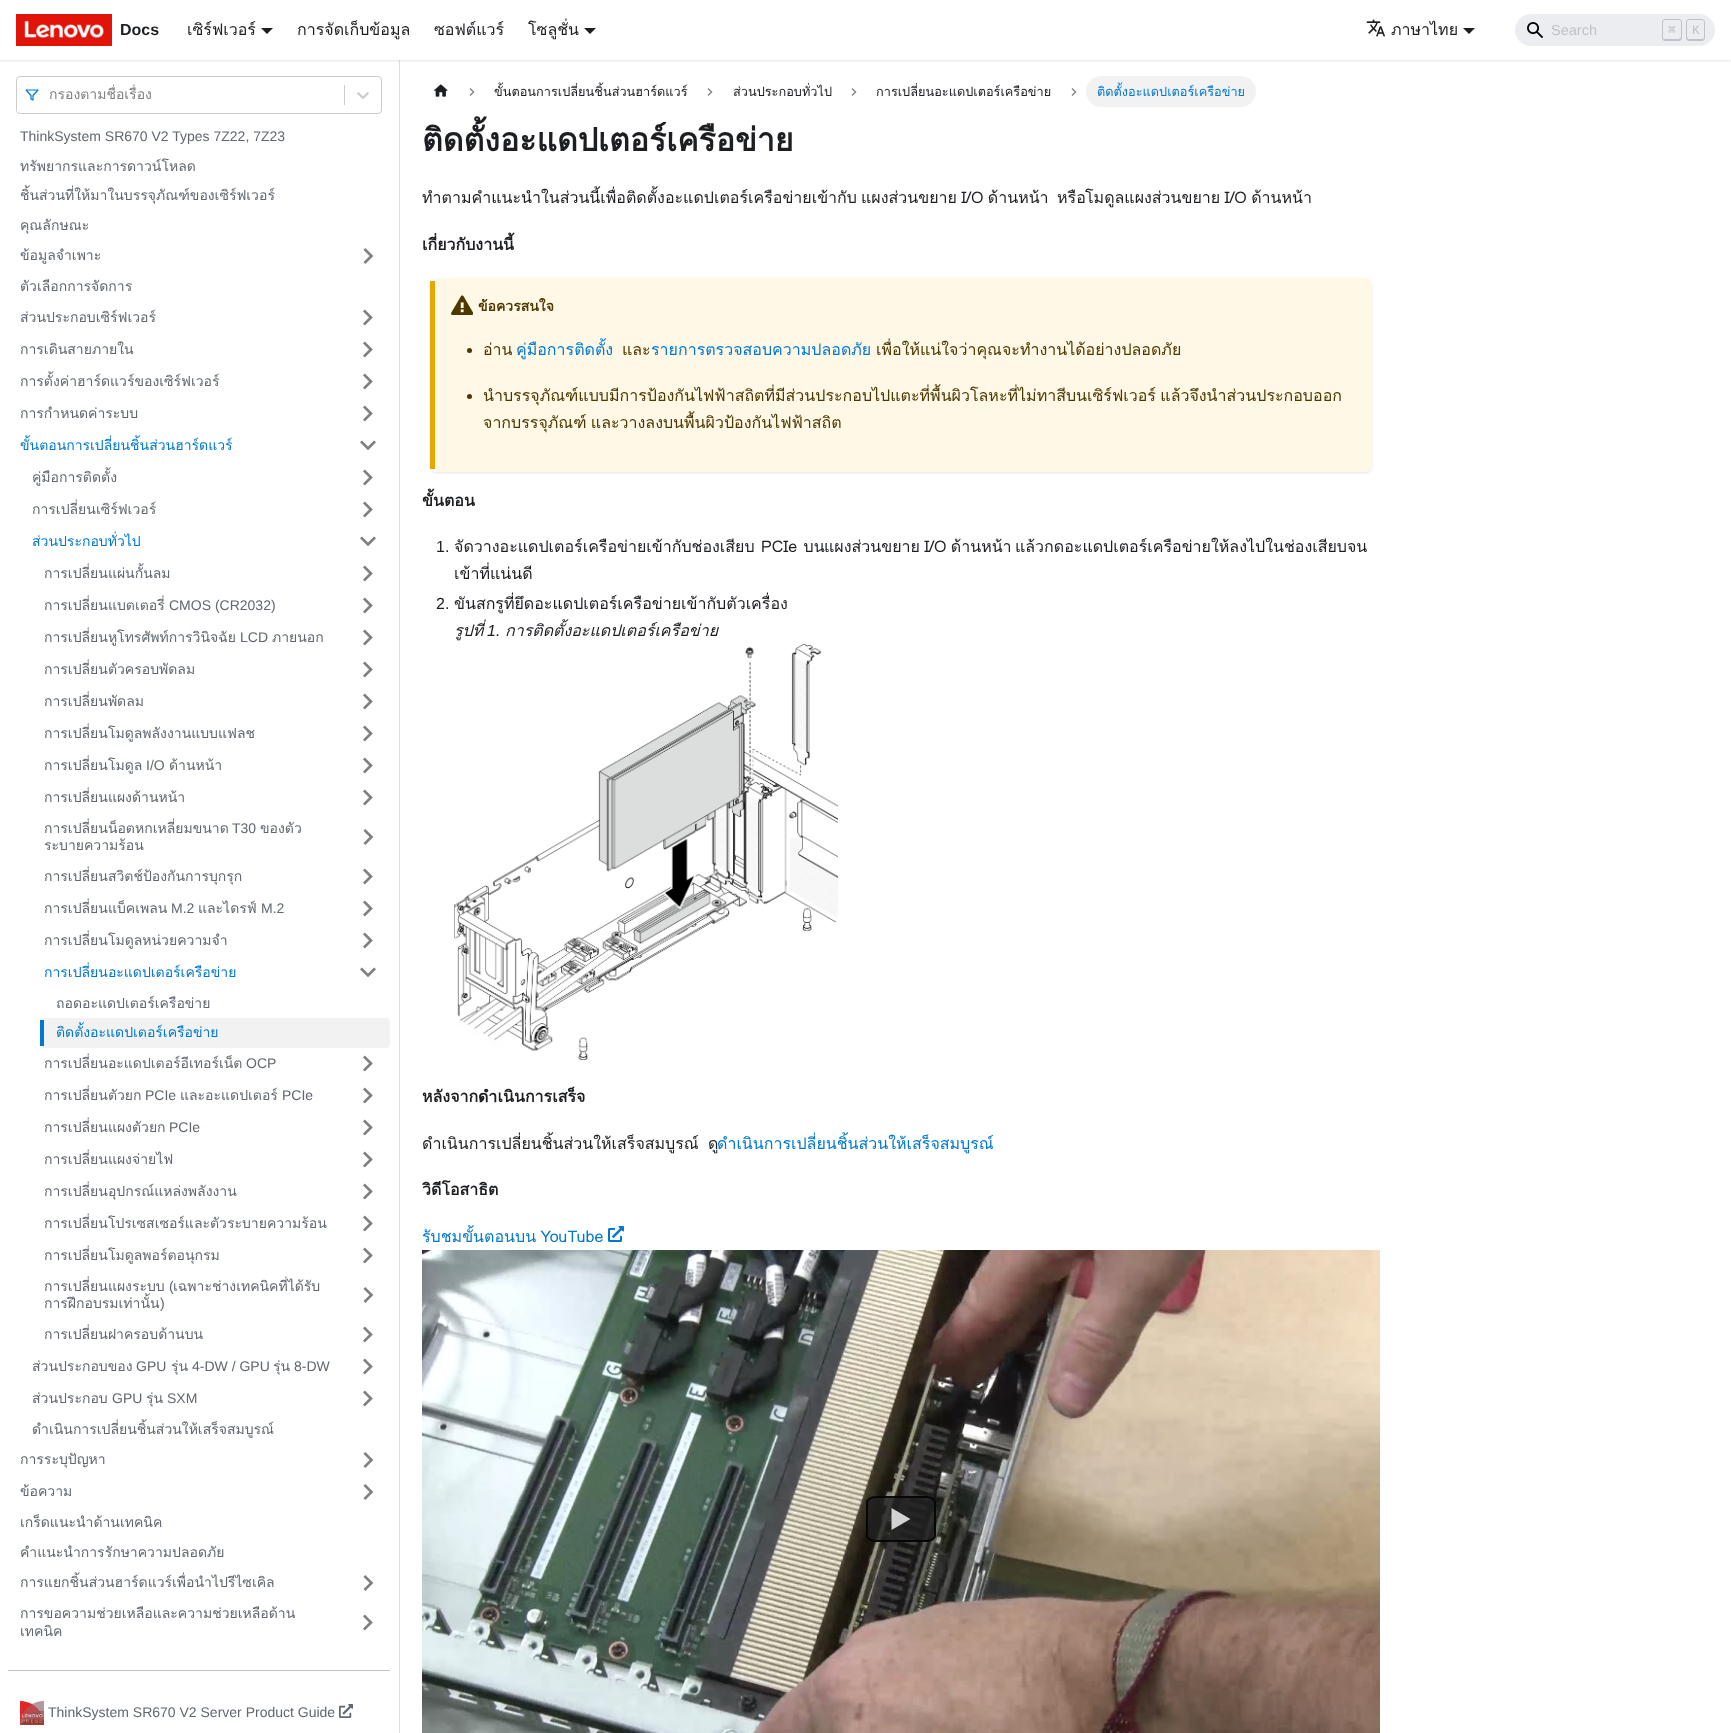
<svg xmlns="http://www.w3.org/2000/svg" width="1731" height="1733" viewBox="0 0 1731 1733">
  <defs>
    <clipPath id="clip1"><path d="M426 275H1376V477H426ZM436 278H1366C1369.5 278 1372 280.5 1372 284V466C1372 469.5 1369.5 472 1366 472H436C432.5 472 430 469.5 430 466V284C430 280.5 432.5 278 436 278Z" clip-rule="evenodd"/></clipPath>
  </defs>
  <rect width="100%" height="100%" fill="#fff"/>
  <path d="M399 60h1v1673H399z" fill="#dadde1"/>
  <path d="M0 1h1731v60H0z" fill="#0000001a" filter="blur(1px)"/>
  <path d="M0 0h1731v60H0z" fill="#fff"/>
  <image x="16" y="14" width="96" height="32" href="img/1.png"/>
  <path d="M261 28H273L267 34Z" fill="#1c1e21"/>
  <path d="M584 28H596L590 34Z" fill="#1c1e21"/>
  <image x="1366" y="19" width="20" height="18" href="img/2.png"/>
  <path d="M1463 28H1475L1469 34Z" fill="#1c1e21"/>
  <rect x="1515" y="14" width="200" height="32" rx="16" fill="#ebedf0"/>
  <image x="1527" y="22" width="16" height="16" href="img/3.png"/>
  <path d="M1681 37C1680.5 38.5 1679.5 39 1677 39H1665C1664 39 1663.5 38.5 1663 37.5C1663 40.5 1665.5 40 1667.5 40H1676.5C1679.5 40 1681 40.5 1681 37Z" fill="#bec3c9"/>
  <rect x="1662.5" y="19.5" width="19" height="21" rx="2.5" fill="none" stroke="#bec3c9"/>
  <path d="M1704 37C1704 38 1703 39 1702 39H1688L1687 36.5C1687 40 1688 40 1691 40H1700C1703 40 1704 40 1704 37Z" fill="#bec3c9"/>
  <rect x="1686.5" y="19.5" width="18" height="21" rx="2.5" fill="none" stroke="#bec3c9"/>
  <rect x="16.5" y="76.5" width="365" height="37" rx="3.5" fill="none" stroke="#ccc"/>
  <path d="M38 90H26L31 95.5V99L33 100V95.5Z" fill="none" stroke="#0078d0" stroke-width="1.2" stroke-linecap="round" stroke-linejoin="round"/>
  <path d="M344 85h1v20H344z" fill="#ccc"/>
  <image x="357" y="92" width="12" height="7" href="img/4.png"/>
  <image x="363" y="248" width="11" height="16" href="img/5.png"/>
  <image x="363" y="309" width="10" height="17" href="img/6.png"/>
  <image x="363" y="341" width="10" height="17" href="img/6.png"/>
  <image x="363" y="373" width="10" height="17" href="img/6.png"/>
  <image x="363" y="405" width="10" height="17" href="img/6.png"/>
  <image x="360" y="440" width="16" height="11" href="img/7.png"/>
  <image x="363" y="469" width="10" height="17" href="img/6.png"/>
  <image x="363" y="501" width="10" height="17" href="img/6.png"/>
  <image x="360" y="536" width="16" height="11" href="img/7.png"/>
  <image x="363" y="565" width="10" height="17" href="img/6.png"/>
  <image x="363" y="597" width="10" height="17" href="img/6.png"/>
  <image x="363" y="629" width="10" height="17" href="img/6.png"/>
  <image x="363" y="661" width="10" height="17" href="img/6.png"/>
  <image x="363" y="693" width="10" height="17" href="img/6.png"/>
  <image x="363" y="725" width="10" height="17" href="img/6.png"/>
  <image x="363" y="757" width="10" height="17" href="img/6.png"/>
  <image x="363" y="789" width="10" height="17" href="img/6.png"/>
  <image x="363" y="829" width="11" height="16" href="img/5.png"/>
  <image x="363" y="868" width="10" height="17" href="img/6.png"/>
  <image x="363" y="900" width="10" height="17" href="img/6.png"/>
  <image x="363" y="932" width="10" height="17" href="img/6.png"/>
  <image x="360" y="967" width="16" height="11" href="img/7.png"/>
  <rect x="40" y="1018" width="350" height="30" rx="4" fill="#f2f2f2"/>
  <path d="M40 1020h4v26H40z" fill="#0078d0"/>
  <image x="363" y="1055" width="10" height="17" href="img/6.png"/>
  <image x="363" y="1087" width="10" height="17" href="img/6.png"/>
  <image x="363" y="1119" width="10" height="17" href="img/6.png"/>
  <image x="363" y="1151" width="10" height="17" href="img/6.png"/>
  <image x="363" y="1183" width="10" height="17" href="img/6.png"/>
  <image x="363" y="1215" width="10" height="17" href="img/6.png"/>
  <image x="363" y="1247" width="10" height="17" href="img/6.png"/>
  <image x="363" y="1287" width="11" height="16" href="img/5.png"/>
  <image x="363" y="1326" width="10" height="17" href="img/6.png"/>
  <image x="363" y="1358" width="10" height="17" href="img/6.png"/>
  <image x="363" y="1390" width="10" height="17" href="img/6.png"/>
  <image x="363" y="1452" width="11" height="16" href="img/5.png"/>
  <image x="363" y="1484" width="11" height="16" href="img/5.png"/>
  <image x="363" y="1575" width="11" height="16" href="img/5.png"/>
  <image x="363" y="1614" width="10" height="17" href="img/6.png"/>
  <path d="M8 1670h382v1H8z" fill="#bec3c9"/>
  <image x="20" y="1701" width="24" height="24" href="img/8.png"/>
  <image x="339" y="1704" width="14" height="14" href="img/9.png"/>
  <image x="434" y="84" width="14" height="13" href="img/10.png"/>
  <image x="469" y="88" width="6" height="8" href="img/11.png"/>
  <image x="707" y="88" width="6" height="8" href="img/11.png"/>
  <image x="851" y="88" width="6" height="8" href="img/11.png"/>
  <image x="1071" y="88" width="6" height="8" href="img/11.png"/>
  <rect x="1086" y="76" width="170" height="31" rx="15.5" fill="#f2f2f2"/>
  <g clip-path="url(#clip1)">
    <rect x="430" y="279" width="942" height="194" rx="6" fill="#0000001a" filter="blur(1px)"/>
  </g>
  <path d="M436 278H1366C1369 278 1372 281 1372 284V466C1372 469 1369 472 1366 472H436C436 472 435 469 435 466V284C435 281 436 278 436 278Z" fill="#fff8e6"/>
  <path d="M430 281h5v188H430z" fill="#e6a700"/>
  <circle cx="469.5" cy="350.5" r="2.5" fill="#4d3800"/>
  <circle cx="469.5" cy="396.5" r="2.5" fill="#4d3800"/>
  <image x="454" y="644" width="384" height="416" href="img/13.png"/>
  <image x="608" y="1226" width="16" height="16" href="img/14.png"/>
  <image x="422" y="1250" width="958" height="483" href="img/15.png"/>
  <path d="M876 1496H926C932 1496 936 1499 936 1502V1536C936 1539 932 1542 926 1542H876C870 1542 866 1539 866 1536V1502C866 1499 870 1496 876 1496Z" fill="#212121cc"/>
  <path d="M876 1497H926C931 1497 935 1499.5 935 1502.5V1535.5C935 1538.5 931 1541 926 1541H876C871 1541 867 1538.5 867 1535.5V1502.5C867 1499.5 871 1497 876 1497Z" fill="none" stroke="#000000cc" stroke-width="2"/>
  <path d="M891.5 1530V1508L910.5 1519Z" fill="#ffffffcc"/>
  <text x="120" y="35" font-family="Liberation Sans" font-size="16" font-weight="bold" fill="#1c1e21">Docs</text>
  <g font-family="Loma" font-size="16" fill="#1c1e21">
    <text x="187" y="35">เซิร์ฟเวอร์</text>
    <text x="297" y="35">การจัดเก็บข้อมูล</text>
    <text x="434" y="35">ซอฟต์แวร์</text>
    <text x="528" y="35">โซลูชั่น</text>
    <text x="1391" y="35">ภาษาไทย</text>
  </g>
  <text x="1551" y="35" font-family="Liberation Sans" font-size="14.5" fill="#bec3c9">Search</text>
  <text x="1668" y="34" font-family="DejaVu Sans Mono" font-size="12.75" fill="#bec3c9">⌘</text>
  <text x="1692" y="34" font-family="Liberation Mono" font-size="12.75" fill="#bec3c9">K</text>
  <text x="49" y="99" font-family="Loma" font-size="14" fill="#808080">กรองตามชื่อเรื่อง</text>
  <text x="20" y="141" font-family="Liberation Sans" font-size="14" fill="#606770">ThinkSystem SR670 V2 Types 7Z22, 7Z23</text>
  <g font-family="Loma" font-size="14" fill="#606770">
    <text x="20" y="171">ทรัพยากรและการดาวน์โหลด</text>
    <text x="20" y="200">ชิ้นส่วนที่ให้มาในบรรจุภัณฑ์ของเซิร์ฟเวอร์</text>
    <text x="20" y="230">คุณลักษณะ</text>
    <text x="20" y="260">ข้อมูลจำเพาะ</text>
    <text x="20" y="291">ตัวเลือกการจัดการ</text>
    <text x="20" y="322">ส่วนประกอบเซิร์ฟเวอร์</text>
    <text x="20" y="354">การเดินสายภายใน</text>
    <text x="20" y="386">การตั้งค่าฮาร์ดแวร์ของเซิร์ฟเวอร์</text>
    <text x="20" y="418">การกำหนดค่าระบบ</text>
  </g>
  <text x="20" y="450" font-family="Loma" font-size="14" fill="#0078d0">ขั้นตอนการเปลี่ยนชิ้นส่วนฮาร์ดแวร์</text>
  <g font-family="Loma" font-size="14" fill="#606770">
    <text x="32" y="482">คู่มือการติดตั้ง</text>
    <text x="32" y="514">การเปลี่ยนเซิร์ฟเวอร์</text>
  </g>
  <text x="32" y="546" font-family="Loma" font-size="14" fill="#0078d0">ส่วนประกอบทั่วไป</text>
  <g font-family="Loma" font-size="14" fill="#606770">
    <text x="44" y="578">การเปลี่ยนแผ่นกั้นลม</text>
    <text x="44" y="610">การเปลี่ยนแบตเตอรี่</text>
  </g>
  <text x="169" y="610" font-family="Liberation Sans" font-size="14" fill="#606770">CMOS (CR2032)</text>
  <text x="44" y="642" font-family="Loma" font-size="14" fill="#606770">การเปลี่ยนหูโทรศัพท์การวินิจฉัย</text>
  <text x="240" y="642" font-family="Liberation Sans" font-size="14" fill="#606770">LCD</text>
  <g font-family="Loma" font-size="14" fill="#606770">
    <text x="272" y="642">ภายนอก</text>
    <text x="44" y="674">การเปลี่ยนตัวครอบพัดลม</text>
    <text x="44" y="706">การเปลี่ยนพัดลม</text>
    <text x="44" y="738">การเปลี่ยนโมดูลพลังงานแบบแฟลช</text>
    <text x="44" y="770">การเปลี่ยนโมดูล</text>
  </g>
  <text x="146" y="770" font-family="Liberation Sans" font-size="14" fill="#606770">I/O</text>
  <g font-family="Loma" font-size="14" fill="#606770">
    <text x="169" y="770">ด้านหน้า</text>
    <text x="44" y="802">การเปลี่ยนแผงด้านหน้า</text>
    <text x="44" y="833">การเปลี่ยนน็อตหกเหลี่ยมขนาด</text>
  </g>
  <text x="232" y="833" font-family="Liberation Sans" font-size="14" fill="#606770">T30</text>
  <g font-family="Loma" font-size="14" fill="#606770">
    <text x="260" y="833">ของตัว</text>
    <text x="44" y="850">ระบายความร้อน</text>
    <text x="44" y="881">การเปลี่ยนสวิตช์ป้องกันการบุกรุก</text>
    <text x="44" y="913">การเปลี่ยนแบ็คเพลน</text>
  </g>
  <text x="171" y="913" font-family="Liberation Sans" font-size="14" fill="#606770">M.2</text>
  <text x="198" y="913" font-family="Loma" font-size="14" fill="#606770">และไดรฟ์</text>
  <text x="261" y="913" font-family="Liberation Sans" font-size="14" fill="#606770">M.2</text>
  <text x="44" y="945" font-family="Loma" font-size="14" fill="#606770">การเปลี่ยนโมดูลหน่วยความจำ</text>
  <text x="44" y="977" font-family="Loma" font-size="14" fill="#0078d0">การเปลี่ยนอะแดปเตอร์เครือข่าย</text>
  <text x="56" y="1008" font-family="Loma" font-size="14" fill="#606770">ถอดอะแดปเตอร์เครือข่าย</text>
  <text x="56" y="1037" font-family="Loma" font-size="14" fill="#0078d0">ติดตั้งอะแดปเตอร์เครือข่าย</text>
  <text x="44" y="1068" font-family="Loma" font-size="14" fill="#606770">การเปลี่ยนอะแดปเตอร์อีเทอร์เน็ต</text>
  <text x="246" y="1068" font-family="Liberation Sans" font-size="14" fill="#606770">OCP</text>
  <text x="44" y="1100" font-family="Loma" font-size="14" fill="#606770">การเปลี่ยนตัวยก</text>
  <text x="145" y="1100" font-family="Liberation Sans" font-size="14" fill="#606770">PCIe</text>
  <text x="180" y="1100" font-family="Loma" font-size="14" fill="#606770">และอะแดปเตอร์</text>
  <text x="282" y="1100" font-family="Liberation Sans" font-size="14" fill="#606770">PCIe</text>
  <text x="44" y="1132" font-family="Loma" font-size="14" fill="#606770">การเปลี่ยนแผงตัวยก</text>
  <text x="169" y="1132" font-family="Liberation Sans" font-size="14" fill="#606770">PCIe</text>
  <g font-family="Loma" font-size="14" fill="#606770">
    <text x="44" y="1164">การเปลี่ยนแผงจ่ายไฟ</text>
    <text x="44" y="1196">การเปลี่ยนอุปกรณ์แหล่งพลังงาน</text>
    <text x="44" y="1228">การเปลี่ยนโปรเซสเซอร์และตัวระบายความร้อน</text>
    <text x="44" y="1260">การเปลี่ยนโมดูลพอร์ตอนุกรม</text>
    <text x="44" y="1291">การเปลี่ยนแผงระบบ</text>
  </g>
  <text x="169" y="1291" font-family="Liberation Sans" font-size="14" fill="#606770">(</text>
  <g font-family="Loma" font-size="14" fill="#606770">
    <text x="173" y="1291">เฉพาะช่างเทคนิคที่ได้รับ</text>
    <text x="44" y="1308">การฝึกอบรมเท่านั้น</text>
  </g>
  <text x="160" y="1308" font-family="Liberation Sans" font-size="14" fill="#606770">)</text>
  <g font-family="Loma" font-size="14" fill="#606770">
    <text x="44" y="1339">การเปลี่ยนฝาครอบด้านบน</text>
    <text x="32" y="1371">ส่วนประกอบของ</text>
  </g>
  <text x="136" y="1371" font-family="Liberation Sans" font-size="14" fill="#606770">GPU</text>
  <text x="171" y="1371" font-family="Loma" font-size="14" fill="#606770">รุ่น</text>
  <text x="192" y="1371" font-family="Liberation Sans" font-size="14" fill="#606770">4-DW / GPU</text>
  <text x="273" y="1371" font-family="Loma" font-size="14" fill="#606770">รุ่น</text>
  <text x="294" y="1371" font-family="Liberation Sans" font-size="14" fill="#606770">8-DW</text>
  <text x="32" y="1403" font-family="Loma" font-size="14" fill="#606770">ส่วนประกอบ</text>
  <text x="112" y="1403" font-family="Liberation Sans" font-size="14" fill="#606770">GPU</text>
  <text x="146" y="1403" font-family="Loma" font-size="14" fill="#606770">รุ่น</text>
  <text x="167" y="1403" font-family="Liberation Sans" font-size="14" fill="#606770">SXM</text>
  <g font-family="Loma" font-size="14" fill="#606770">
    <text x="32" y="1434">ดำเนินการเปลี่ยนชิ้นส่วนให้เสร็จสมบูรณ์</text>
    <text x="20" y="1464">การระบุปัญหา</text>
    <text x="20" y="1496">ข้อความ</text>
    <text x="20" y="1527">เกร็ดแนะนำด้านเทคนิค</text>
    <text x="20" y="1557">คำแนะนำการรักษาความปลอดภัย</text>
    <text x="20" y="1587">การแยกชิ้นส่วนฮาร์ดแวร์เพื่อนำไปรีไซเคิล</text>
    <text x="20" y="1618">การขอความช่วยเหลือและความช่วยเหลือด้าน</text>
    <text x="20" y="1636">เทคนิค</text>
  </g>
  <text x="48" y="1717" font-family="Liberation Sans" font-size="14" fill="#606770">ThinkSystem SR670 V2 Server Product Guide</text>
  <g font-family="Loma" font-size="12.75" fill="#1c1e21">
    <text x="494" y="96">ขั้นตอนการเปลี่ยนชิ้นส่วนฮาร์ดแวร์</text>
    <text x="733" y="96">ส่วนประกอบทั่วไป</text>
    <text x="876" y="96">การเปลี่ยนอะแดปเตอร์เครือข่าย</text>
  </g>
  <text x="1097" y="96" font-family="Loma" font-size="12.75" fill="#0078d0">ติดตั้งอะแดปเตอร์เครือข่าย</text>
  <text x="422" y="151" font-family="Loma" font-size="32" font-weight="bold" fill="#1c1e21">ติดตั้งอะแดปเตอร์เครือข่าย</text>
  <g font-family="Loma" font-size="16" fill="#1c1e21">
    <text x="422" y="203">ทำตามคำแนะนำในส่วนนี้เพื่อติดตั้งอะแดปเตอร์เครือข่ายเข้ากับ</text>
    <text x="861" y="203" word-spacing="-1">แผงส่วนขยาย I/O ด้านหน้า</text>
    <text x="1057" y="203">หรือ</text>
    <text x="1085" y="203" word-spacing="-1">โมดูลแผงส่วนขยาย I/O ด้านหน้า</text>
  </g>
  <text x="422" y="250" font-family="Loma" font-size="16" font-weight="bold" fill="#1c1e21">เกี่ยวกับงานนี้</text>
  <text x="478" y="311" font-family="Loma" font-size="14" font-weight="bold" fill="#4d3800">ข้อควรสนใจ</text>
  <image x="451" y="295" width="22" height="20" href="img/12.png"/>
  <text x="483" y="355" font-family="Loma" font-size="16" fill="#4d3800">อ่าน</text>
  <text x="516" y="355" font-family="Loma" font-size="16" fill="#0078d0">คู่มือการติดตั้ง</text>
  <text x="622" y="355" font-family="Loma" font-size="16" fill="#4d3800">และ</text>
  <text x="651" y="355" font-family="Loma" font-size="16" fill="#0078d0">รายการตรวจสอบความปลอดภัย</text>
  <g font-family="Loma" font-size="16" fill="#4d3800">
    <text x="876" y="355">เพื่อให้แน่ใจว่าคุณจะทำงานได้อย่างปลอดภัย</text>
    <text x="483" y="401" word-spacing="-1">นำบรรจุภัณฑ์แบบมีการป้องกันไฟฟ้าสถิตที่มีส่วนประกอบไปแตะที่พื้นผิวโลหะที่ไม่ทาสีบนเซิร์ฟเวอร์ แล้วจึงนำส่วนประกอบออก</text>
    <text x="483" y="428" word-spacing="-1">จากบรรจุภัณฑ์ และวางลงบนพื้นผิวป้องกันไฟฟ้าสถิต</text>
  </g>
  <text x="422" y="506" font-family="Loma" font-size="16" font-weight="bold" fill="#1c1e21">ขั้นตอน</text>
  <text x="436" y="552" font-family="Liberation Sans" font-size="16" fill="#1c1e21">1.</text>
  <g font-family="Loma" font-size="16" fill="#1c1e21">
    <text x="454" y="552" word-spacing="1">จัดวางอะแดปเตอร์เครือข่ายเข้ากับช่องเสียบ PCIe บน</text>
    <text x="824" y="552" word-spacing="-1">แผงส่วนขยาย I/O ด้านหน้า</text>
    <text x="1015" y="552">แล้วกดอะแดปเตอร์เครือข่ายให้ลงไปในช่องเสียบจน</text>
    <text x="454" y="579">เข้าที่แน่นดี</text>
  </g>
  <text x="436" y="609" font-family="Liberation Sans" font-size="16" fill="#1c1e21">2.</text>
  <text x="454" y="609" font-family="Loma" font-size="16" fill="#1c1e21">ขันสกรูที่ยึดอะแดปเตอร์เครือข่ายเข้ากับตัวเครื่อง</text>
  <text x="454" y="636" font-family="Loma" font-size="16" font-style="italic" fill="#1c1e21">รูปที่</text>
  <text x="487" y="636" font-family="Liberation Sans" font-size="16" font-style="italic" fill="#1c1e21">1.</text>
  <text x="505" y="636" font-family="Loma" font-size="16" font-style="italic" fill="#1c1e21">การติดตั้งอะแดปเตอร์เครือข่าย</text>
  <text x="422" y="1102" font-family="Loma" font-size="16" font-weight="bold" fill="#1c1e21">หลังจากดำเนินการเสร็จ</text>
  <text x="422" y="1149" word-spacing="4" font-family="Loma" font-size="16" fill="#1c1e21">ดำเนินการเปลี่ยนชิ้นส่วนให้เสร็จสมบูรณ์ ดู</text>
  <text x="717" y="1149" font-family="Loma" font-size="16" fill="#0078d0">ดำเนินการเปลี่ยนชิ้นส่วนให้เสร็จสมบูรณ์</text>
  <text x="422" y="1195" font-family="Loma" font-size="16" font-weight="bold" fill="#1c1e21">วิดีโอสาธิต</text>
  <text x="422" y="1242" word-spacing="-1" font-family="Loma" font-size="16" fill="#0078d0">รับชมขั้นตอนบน YouTube</text>
</svg>
